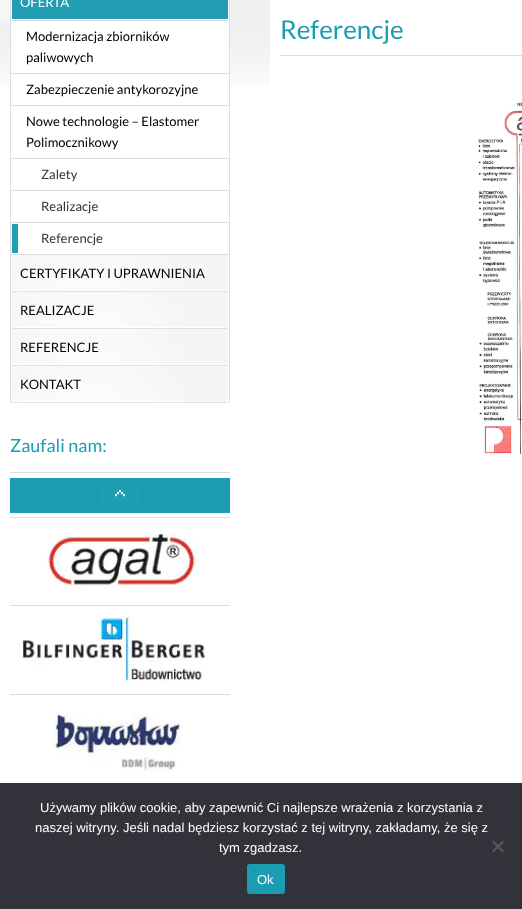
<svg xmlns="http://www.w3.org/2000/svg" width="522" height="909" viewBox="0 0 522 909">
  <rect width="100%" height="100%" fill="#fff"/>
  <image x="0" y="0" width="270" height="85" href="img/1.png"/>
  <image x="10" y="0" width="220" height="21" href="img/2.png"/>
  <path d="M11 21h218v52H11z" fill="#fff"/>
  <path d="M229 21h1v234H229z" fill="#ddd"/>
  <path d="M10 73h220v1H10z" fill="#ddd"/>
  <path d="M10 21h1v53H10z" fill="#ddd"/>
  <path d="M11 74h218v11H11z" fill="#fff"/>
  <path d="M10 105h220v1H10z" fill="#ddd"/>
  <path d="M10 74h1v32H10z" fill="#ddd"/>
  <path d="M10 158h220v1H10z" fill="#ddd"/>
  <path d="M10 106h1v53H10z" fill="#ddd"/>
  <path d="M10 190h220v1H10z" fill="#ddd"/>
  <path d="M10 159h1v32H10z" fill="#ddd"/>
  <path d="M10 222h220v1H10z" fill="#ddd"/>
  <path d="M10 191h1v32H10z" fill="#ddd"/>
  <path d="M12 224h6v29H12z" fill="#1f9db1"/>
  <path d="M10 254h220v1H10z" fill="#ddd"/>
  <path d="M10 223h1v32H10z" fill="#ddd"/>
  <image x="10" y="255" width="220" height="37" href="img/3.png"/>
  <image x="10" y="292" width="220" height="37" href="img/3.png"/>
  <image x="10" y="329" width="220" height="37" href="img/3.png"/>
  <image x="10" y="366" width="220" height="37" href="img/3.png"/>
  <path d="M10 472h220v1H10z" fill="#ddd"/>
  <image x="10" y="478" width="220" height="35" href="img/4.png"/>
  <path d="M10 517h220v1H10z" fill="#ddd"/>
  <image x="47" y="534" width="151" height="54" href="img/5.png"/>
  <path d="M10 605h220v1H10z" fill="#ddd"/>
  <image x="22" y="615" width="184" height="67" href="img/6.png"/>
  <path d="M10 694h220v1H10z" fill="#ddd"/>
  <image x="52" y="713" width="129" height="58" href="img/7.png"/>
  <path d="M280 55h242v1H280z" fill="#ddd"/>
  <image x="478" y="102" width="44" height="353" href="img/8.png"/>
  <path d="M0 783h522v126H0z" fill="#32323a"/>
  <path d="M502.5 840.5L504 842L493.5 852.5L492 851Z" fill="#59595d"/>
  <path d="M492 842L493.5 840.5L504 851L502.5 852.5Z" fill="#59595d"/>
  <rect x="247" y="864" width="38" height="30" rx="3" fill="#1c9cb0"/>
  <text x="20" y="7" font-family="Lato" font-size="13" fill="#fff">OFERTA</text>
  <g font-family="Lato" font-size="13" fill="#000">
    <text x="26" y="41">Modernizacja zbiorników</text>
    <text x="26" y="62">paliwowych</text>
    <text x="26" y="94">Zabezpieczenie antykorozyjne</text>
    <text x="26" y="126">Nowe technologie – Elastomer</text>
    <text x="26" y="147">Polimocznikowy</text>
  </g>
  <g font-family="Lato" font-size="13" fill="#333">
    <text x="41" y="179">Zalety</text>
    <text x="41" y="211">Realizacje</text>
    <text x="41" y="243">Referencje</text>
  </g>
  <g font-family="Lato" font-size="13" fill="#000">
    <text x="20" y="278">CERTYFIKATY I UPRAWNIENIA</text>
    <text x="20" y="315">REALIZACJE</text>
    <text x="20" y="352">REFERENCJE</text>
    <text x="20" y="389">KONTAKT</text>
  </g>
  <text x="10" y="452" font-family="Lato" font-size="18" fill="#1c9cb0">Zaufali nam:</text>
  <text x="280" y="39" font-family="Lato" font-size="26" fill="#1c9cb0">Referencje</text>
  <g font-family="Liberation Sans" font-size="13" fill="#fff">
    <text x="40" y="812">Używamy plików cookie, aby zapewnić Ci najlepsze wrażenia z korzystania z</text>
    <text x="35" y="832">naszej witryny. Jeśli nadal będziesz korzystać z tej witryny, zakładamy, że się z</text>
    <text x="219" y="852">tym zgadzasz.</text>
    <text x="257" y="884">Ok</text>
  </g>
</svg>
